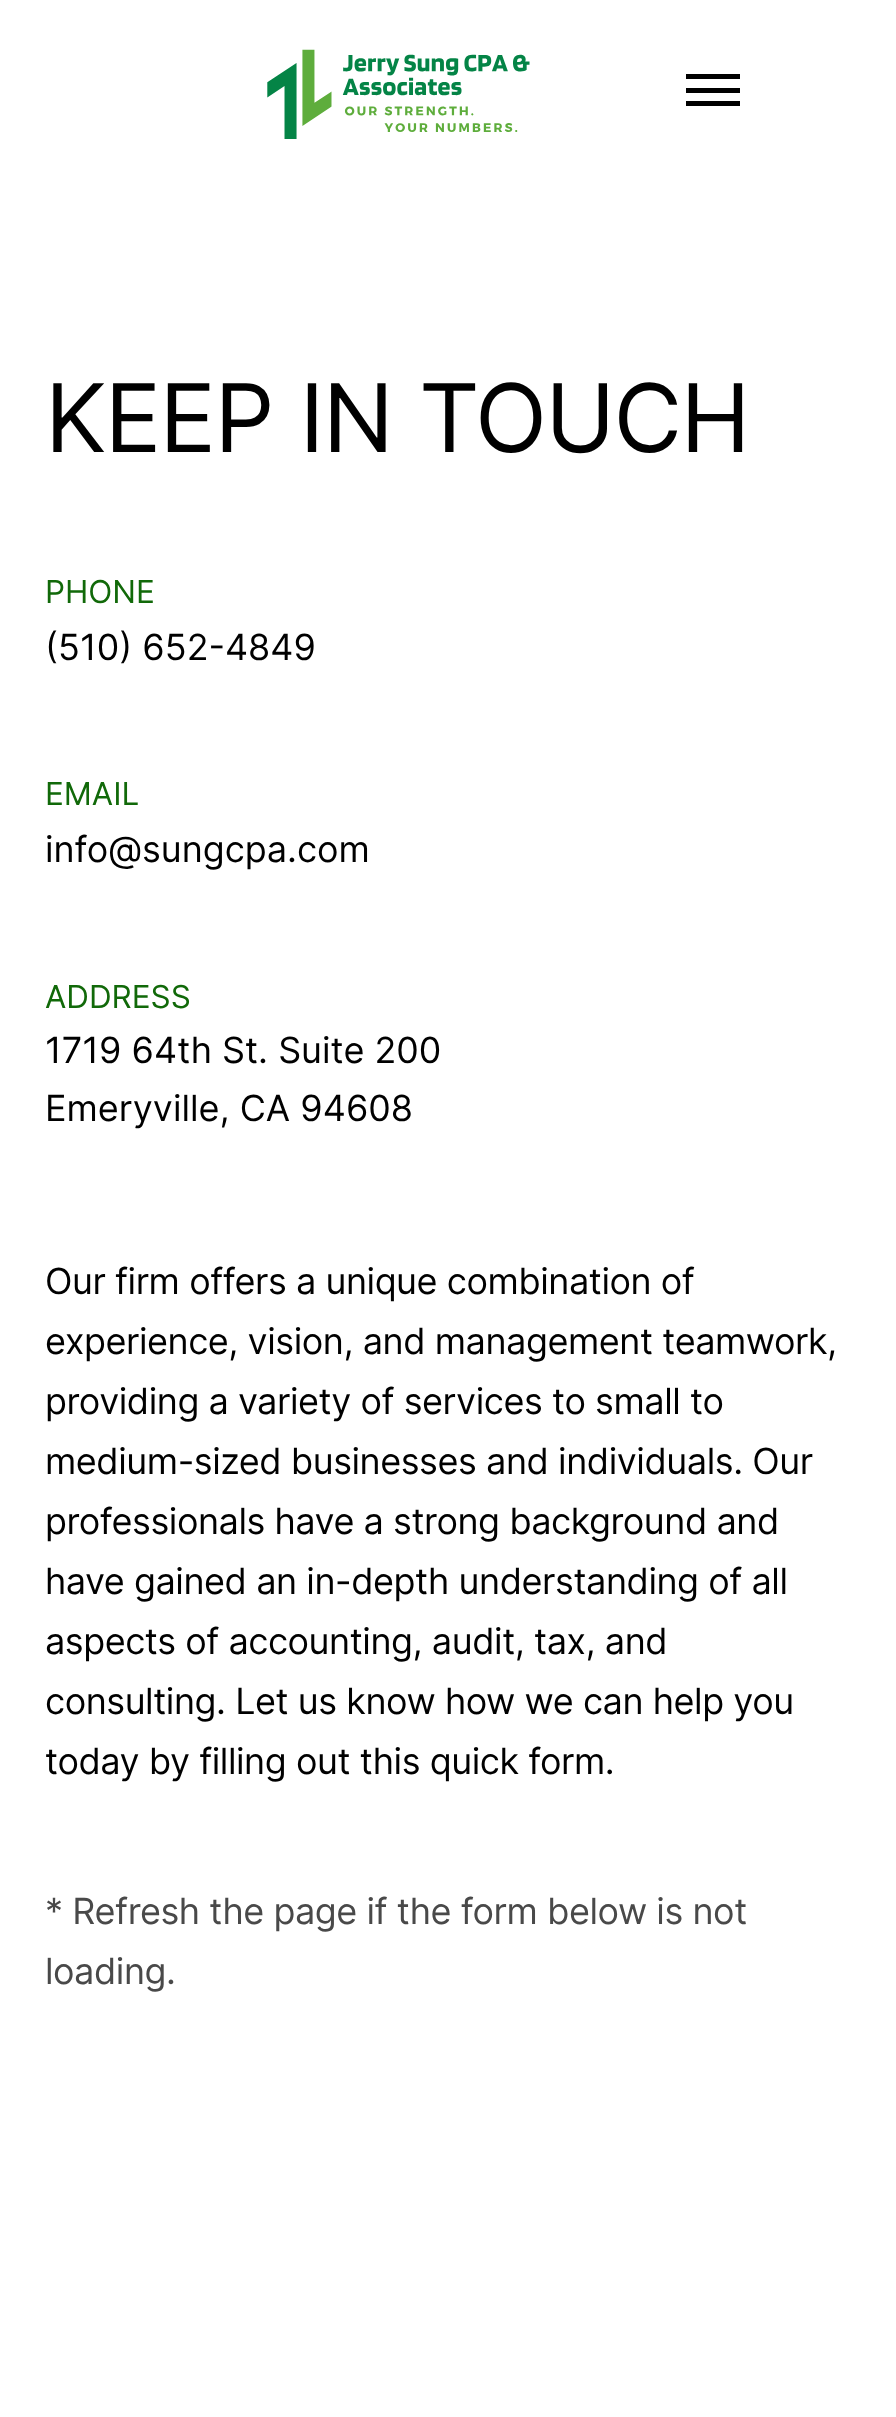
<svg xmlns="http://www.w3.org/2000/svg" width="896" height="2417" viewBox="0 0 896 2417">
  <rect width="100%" height="100%" fill="#fff"/>
  <image x="267" y="49" width="263" height="90" href="img/1.png"/>
  <path d="M686 88h54v5H686z" fill="#000"/>
  <path d="M686 74h54v5H686z" fill="#000"/>
  <path d="M686 101h54v5H686z" fill="#000"/>
  <text x="45" y="452" word-spacing="2" font-family="Inter" font-size="94.5" letter-spacing="-1.75" fill="#000">KEEP IN TOUCH</text>
  <text x="45" y="603" font-family="Inter" font-size="31.5" fill="#116909">PHONE</text>
  <text x="45" y="660" font-family="Inter" font-size="36" fill="#000">(510) 652-4849</text>
  <text x="45" y="805" font-family="Inter" font-size="31.5" fill="#116909">EMAIL</text>
  <text x="45" y="862" font-family="Inter" font-size="36" fill="#000">info@sungcpa.com</text>
  <text x="45" y="1008" font-family="Inter" font-size="31.5" fill="#116909">ADDRESS</text>
  <g font-family="Inter" font-size="36" fill="#000">
    <text x="45" y="1063">1719 64th St. Suite 200</text>
    <text x="45" y="1121">Emeryville, CA 94608</text>
  </g>
  <g font-family="Inter" font-size="36" letter-spacing="-0.45" fill="#000">
    <text x="45" y="1294">Our firm offers a unique combination of</text>
    <text x="45" y="1354">experience, vision, and management teamwork,</text>
    <text x="45" y="1414">providing a variety of services to small to</text>
    <text x="45" y="1474">medium-sized businesses and individuals. Our</text>
    <text x="45" y="1534">professionals have a strong background and</text>
    <text x="45" y="1594">have gained an in-depth understanding of all</text>
    <text x="45" y="1654">aspects of accounting, audit, tax, and</text>
    <text x="45" y="1714">consulting. Let us know how we can help you</text>
    <text x="45" y="1774">today by filling out this quick form.</text>
  </g>
  <g font-family="Inter" font-size="36" letter-spacing="-0.45" fill="#494949">
    <text x="45" y="1924">* Refresh the page if the form below is not</text>
    <text x="45" y="1984">loading.</text>
  </g>
</svg>
